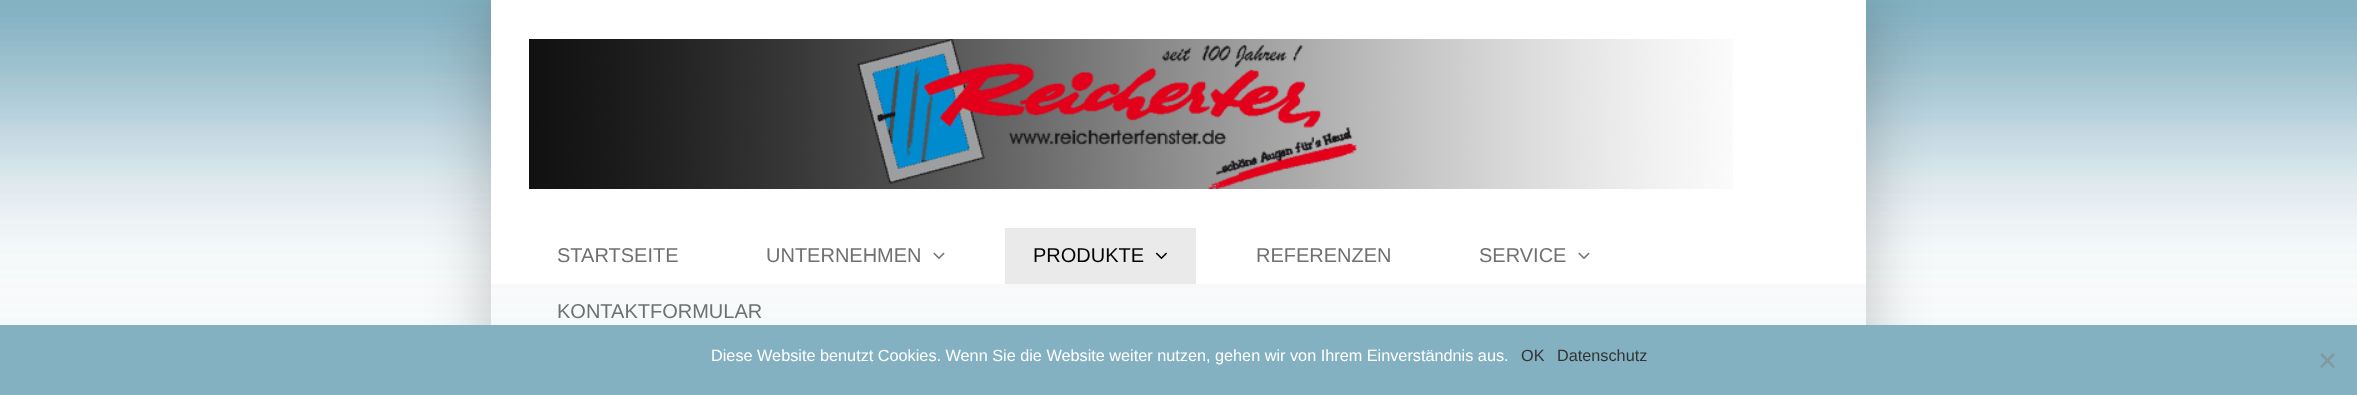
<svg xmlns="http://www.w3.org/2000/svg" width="2357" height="395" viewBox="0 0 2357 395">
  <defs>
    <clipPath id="clip1"><path d="M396 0H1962V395H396ZM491 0H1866V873H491Z" clip-rule="evenodd"/></clipPath>
  </defs>
  <rect width="100%" height="100%" fill="#fff"/>
  <image x="0" y="0" width="2357" height="325" href="img/1.png"/>
  <g clip-path="url(#clip1)">
    <path d="M490 -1h1378v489H490z" fill="#00000038" filter="blur(31px)"/>
  </g>
  <path d="M491 0h1375v284H491z" fill="#fff"/>
  <image x="529" y="39" width="1204" height="150" href="img/2.png"/>
  <image x="933" y="252" width="12" height="8" href="img/3.png"/>
  <path d="M1005 228h191v56H1005z" fill="#eaeaea"/>
  <image x="1155" y="252" width="12" height="8" href="img/4.png"/>
  <image x="1578" y="252" width="12" height="8" href="img/3.png"/>
  <path d="M0 325h2357v70H0z" fill="#83b1c1"/>
  <path d="M2333 353L2335 355L2322 368L2320 366.5Z" fill="#8299a1"/>
  <path d="M2320 355L2322 353L2335 366.5L2333 368Z" fill="#8299a1"/>
  <g font-family="Liberation Sans" font-size="20" fill="#707070">
    <text x="557" y="262">STARTSEITE</text>
    <text x="766" y="262">UNTERNEHMEN</text>
  </g>
  <text x="1033" y="262" font-family="Liberation Sans" font-size="20" fill="#020202">PRODUKTE</text>
  <g font-family="Liberation Sans" font-size="20" fill="#707070">
    <text x="1256" y="262">REFERENZEN</text>
    <text x="1479" y="262">SERVICE</text>
    <text x="557" y="318">KONTAKTFORMULAR</text>
  </g>
  <text x="711" y="361" font-family="Liberation Sans" font-size="16.25" fill="#fff">Diese Website benutzt Cookies. Wenn Sie die Website weiter nutzen, gehen wir von Ihrem Einverständnis aus.</text>
  <g font-family="Liberation Sans" font-size="16.25" fill="#333">
    <text x="1521" y="361">OK</text>
    <text x="1557" y="361">Datenschutz</text>
  </g>
</svg>
